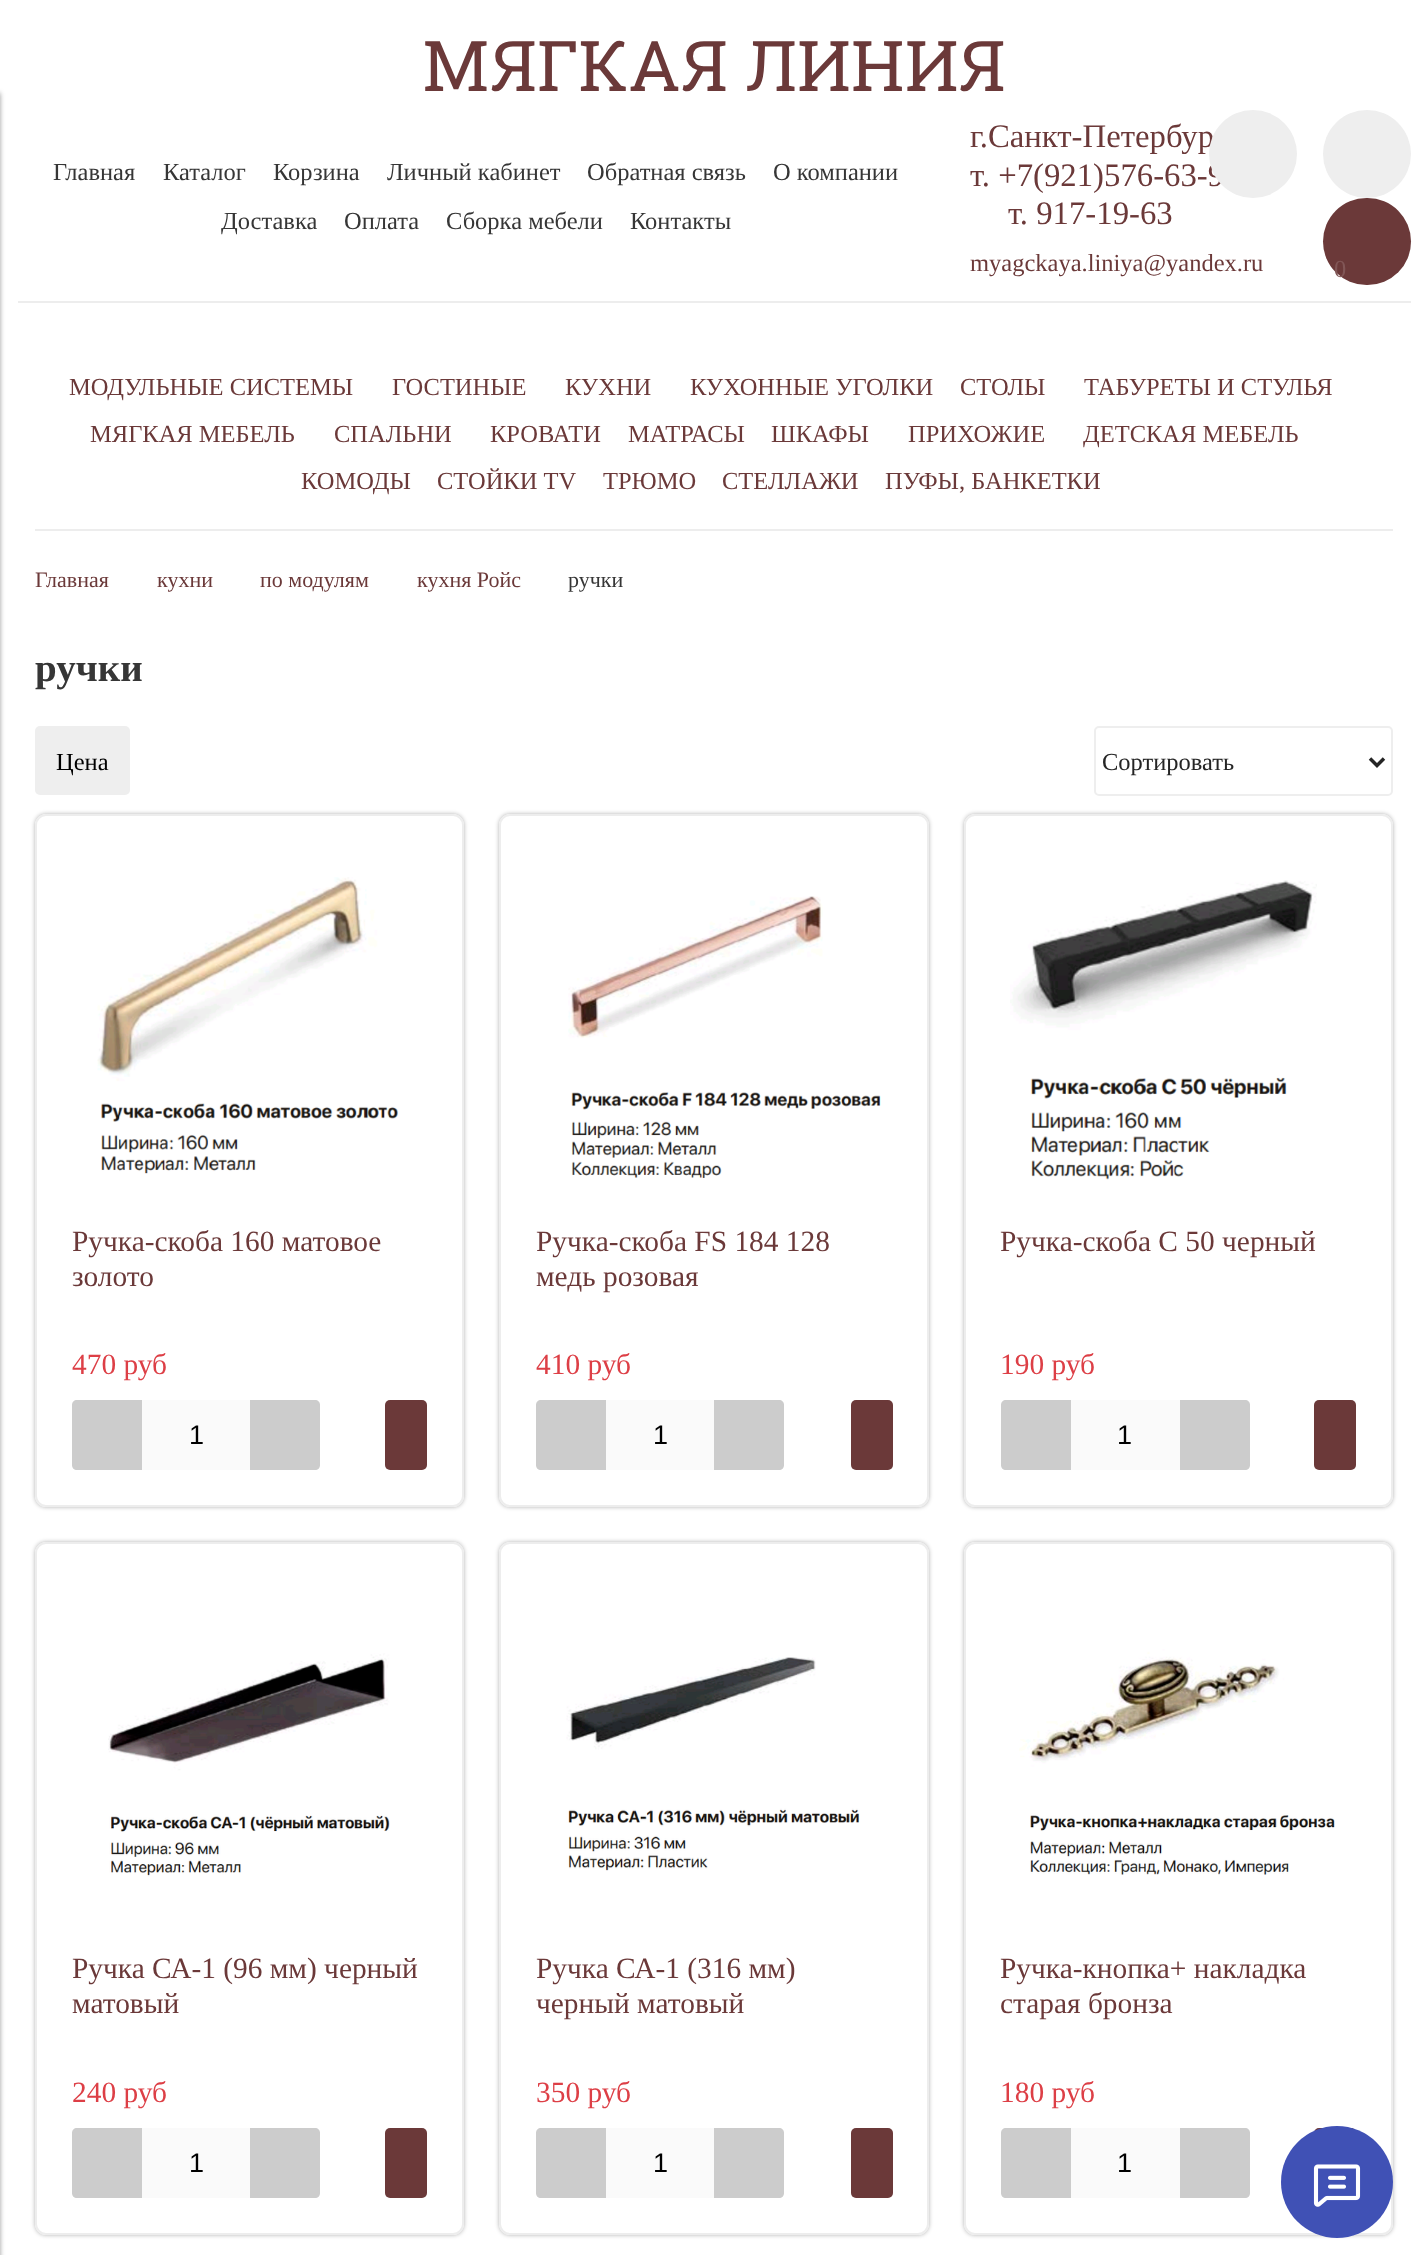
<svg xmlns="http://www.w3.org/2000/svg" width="1427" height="2255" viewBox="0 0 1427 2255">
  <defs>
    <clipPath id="clip1"><path d="M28 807H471V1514H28ZM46 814H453C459 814 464 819 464 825V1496C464 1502 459 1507 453 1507H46C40 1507 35 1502 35 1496V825C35 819 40 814 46 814Z" clip-rule="evenodd"/></clipPath>
    <clipPath id="clip2"><path d="M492 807H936V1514H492ZM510 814H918C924 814 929 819 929 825V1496C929 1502 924 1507 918 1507H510C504 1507 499 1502 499 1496V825C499 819 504 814 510 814Z" clip-rule="evenodd"/></clipPath>
    <clipPath id="clip3"><path d="M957 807H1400V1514H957ZM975 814H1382C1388 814 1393 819 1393 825V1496C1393 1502 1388 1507 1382 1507H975C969 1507 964 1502 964 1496V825C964 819 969 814 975 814Z" clip-rule="evenodd"/></clipPath>
    <clipPath id="clip4"><path d="M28 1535H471V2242H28ZM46 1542H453C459 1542 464 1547 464 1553V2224C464 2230 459 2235 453 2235H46C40 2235 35 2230 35 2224V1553C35 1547 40 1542 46 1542Z" clip-rule="evenodd"/></clipPath>
    <clipPath id="clip5"><path d="M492 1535H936V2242H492ZM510 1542H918C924 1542 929 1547 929 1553V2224C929 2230 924 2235 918 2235H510C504 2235 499 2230 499 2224V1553C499 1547 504 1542 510 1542Z" clip-rule="evenodd"/></clipPath>
    <clipPath id="clip6"><path d="M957 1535H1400V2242H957ZM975 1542H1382C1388 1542 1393 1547 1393 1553V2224C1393 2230 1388 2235 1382 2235H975C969 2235 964 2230 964 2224V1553C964 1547 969 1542 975 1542Z" clip-rule="evenodd"/></clipPath>
  </defs>
  <rect width="100%" height="100%" fill="#fff"/>
  <path d="M-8 93h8v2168H-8z" fill="#00000066" filter="blur(2.5px)"/>
  <circle cx="1367" cy="154" r="44" fill="#eee"/>
  <rect x="1323" y="198" width="88" height="87" rx="43.5" fill="#6b3939"/>
  <path d="M18 301h1393v2H18z" fill="#ededed"/>
  <path d="M35 529h1358v2H35z" fill="#ededed"/>
  <rect x="35" y="726" width="95" height="69" rx="5" fill="#eee"/>
  <rect x="1095" y="727" width="297" height="68" rx="4" fill="none" stroke="#eee" stroke-width="2"/>
  <path d="M1370 758.5L1377 765.5L1384 758.5" fill="none" stroke="#252525" stroke-width="3.5"/>
  <g clip-path="url(#clip1)">
    <rect x="35" y="814" width="429" height="693" rx="11" fill="#0000004d" filter="blur(2px)"/>
  </g>
  <rect x="36" y="815" width="427" height="691" rx="10" fill="none" stroke="#ededed" stroke-width="2"/>
  <image x="97" y="877" width="302" height="297" href="img/1.png"/>
  <path d="M77 1400H142V1470H77C74 1470 72 1468 72 1465V1405C72 1402 74 1400 77 1400Z" fill="#ccc"/>
  <path d="M142 1400h108v70H142z" fill="#fafafa"/>
  <path d="M250 1400H315C318 1400 320 1402 320 1405V1465C320 1468 318 1470 315 1470H250Z" fill="#ccc"/>
  <rect x="385" y="1400" width="42" height="70" rx="5" fill="#6b3939"/>
  <g clip-path="url(#clip2)">
    <rect x="499" y="814" width="430" height="693" rx="11" fill="#0000004d" filter="blur(2px)"/>
  </g>
  <rect x="500" y="815" width="428" height="691" rx="10" fill="none" stroke="#ededed" stroke-width="2"/>
  <image x="568" y="896" width="313" height="283" href="img/2.png"/>
  <path d="M541 1400H606V1470H541C538 1470 536 1468 536 1465V1405C536 1402 538 1400 541 1400Z" fill="#ccc"/>
  <path d="M606 1400h108v70H606z" fill="#fafafa"/>
  <path d="M714 1400H779C782 1400 784 1402 784 1405V1465C784 1468 782 1470 779 1470H714Z" fill="#ccc"/>
  <rect x="851" y="1400" width="42" height="70" rx="5" fill="#6b3939"/>
  <g clip-path="url(#clip3)">
    <rect x="964" y="814" width="429" height="693" rx="11" fill="#0000004d" filter="blur(2px)"/>
  </g>
  <rect x="965" y="815" width="427" height="691" rx="10" fill="none" stroke="#ededed" stroke-width="2"/>
  <image x="1010" y="880" width="307" height="300" href="img/3.png"/>
  <path d="M1006 1400H1071V1470H1006C1003 1470 1001 1468 1001 1465V1405C1001 1402 1003 1400 1006 1400Z" fill="#ccc"/>
  <path d="M1071 1400h109v70H1071z" fill="#fafafa"/>
  <path d="M1180 1400H1245C1248 1400 1250 1402 1250 1405V1465C1250 1468 1248 1470 1245 1470H1180Z" fill="#ccc"/>
  <rect x="1314" y="1400" width="42" height="70" rx="5" fill="#6b3939"/>
  <g clip-path="url(#clip4)">
    <rect x="35" y="1542" width="429" height="693" rx="11" fill="#0000004d" filter="blur(2px)"/>
  </g>
  <rect x="36" y="1543" width="427" height="691" rx="10" fill="none" stroke="#ededed" stroke-width="2"/>
  <image x="108" y="1653" width="282" height="224" href="img/4.png"/>
  <path d="M77 2128H142V2198H77C74 2198 72 2196 72 2193V2133C72 2130 74 2128 77 2128Z" fill="#ccc"/>
  <path d="M142 2128h108v70H142z" fill="#fafafa"/>
  <path d="M250 2128H315C318 2128 320 2130 320 2133V2193C320 2196 318 2198 315 2198H250Z" fill="#ccc"/>
  <rect x="385" y="2128" width="42" height="70" rx="5" fill="#6b3939"/>
  <g clip-path="url(#clip5)">
    <rect x="499" y="1542" width="430" height="693" rx="11" fill="#0000004d" filter="blur(2px)"/>
  </g>
  <rect x="500" y="1543" width="428" height="691" rx="10" fill="none" stroke="#ededed" stroke-width="2"/>
  <image x="566" y="1657" width="294" height="214" href="img/5.png"/>
  <path d="M541 2128H606V2198H541C538 2198 536 2196 536 2193V2133C536 2130 538 2128 541 2128Z" fill="#ccc"/>
  <path d="M606 2128h108v70H606z" fill="#fafafa"/>
  <path d="M714 2128H779C782 2128 784 2130 784 2133V2193C784 2196 782 2198 779 2198H714Z" fill="#ccc"/>
  <rect x="851" y="2128" width="42" height="70" rx="5" fill="#6b3939"/>
  <g clip-path="url(#clip6)">
    <rect x="964" y="1542" width="429" height="693" rx="11" fill="#0000004d" filter="blur(2px)"/>
  </g>
  <rect x="965" y="1543" width="427" height="691" rx="10" fill="none" stroke="#ededed" stroke-width="2"/>
  <image x="1019" y="1649" width="316" height="226" href="img/6.png"/>
  <path d="M1006 2128H1071V2198H1006C1003 2198 1001 2196 1001 2193V2133C1001 2130 1003 2128 1006 2128Z" fill="#ccc"/>
  <path d="M1071 2128h109v70H1071z" fill="#fafafa"/>
  <path d="M1180 2128H1245C1248 2128 1250 2130 1250 2133V2193C1250 2196 1248 2198 1245 2198H1180Z" fill="#ccc"/>
  <rect x="1314" y="2128" width="42" height="70" rx="5" fill="#6b3939"/>
  <circle cx="1337" cy="2182" r="56" fill="#4051b5"/>
  <image x="1313" y="2164" width="48" height="43" href="img/7.png"/>
  <text x="422" y="91" font-family="Roboto Slab" font-size="70" fill="#6b3939">МЯГКАЯ ЛИНИЯ</text>
  <g font-family="Liberation Serif" font-size="24.5" fill="#363636">
    <text x="53" y="180">Главная</text>
    <text x="163" y="180">Каталог</text>
    <text x="273" y="180">Корзина</text>
    <text x="387" y="180">Личный кабинет</text>
    <text x="587" y="180">Обратная связь</text>
    <text x="773" y="180">О компании</text>
    <text x="221" y="229">Доставка</text>
    <text x="344" y="229">Оплата</text>
    <text x="446" y="229">Сборка мебели</text>
    <text x="630" y="229">Контакты</text>
  </g>
  <g font-family="Liberation Serif" font-size="32.75" fill="#6b3939">
    <text x="970" y="147">г.Санкт-Петербур</text>
    <text x="970" y="186">т. +7(921)576-63-9</text>
    <text x="1008" y="224">т. 917-19-63</text>
  </g>
  <text x="970" y="271" font-family="Liberation Serif" font-size="24.5" fill="#6b3939">myagckaya.liniya@yandex.ru</text>
  <circle cx="1253" cy="154" r="44" fill="#eee"/>
  <text x="1334" y="277" font-family="Liberation Serif" font-size="24.5" fill="#815656">0</text>
  <g font-family="Liberation Serif" font-size="24.5" fill="#6b3939">
    <text x="69" y="395">МОДУЛЬНЫЕ СИСТЕМЫ</text>
    <text x="392" y="395">ГОСТИНЫЕ</text>
    <text x="565" y="395">КУХНИ</text>
    <text x="690" y="395">КУХОННЫЕ УГОЛКИ</text>
    <text x="960" y="395">СТОЛЫ</text>
    <text x="1084" y="395">ТАБУРЕТЫ И СТУЛЬЯ</text>
    <text x="90" y="442">МЯГКАЯ МЕБЕЛЬ</text>
    <text x="334" y="442">СПАЛЬНИ</text>
    <text x="490" y="442">КРОВАТИ</text>
    <text x="628" y="442">МАТРАСЫ</text>
    <text x="771" y="442">ШКАФЫ</text>
    <text x="908" y="442">ПРИХОЖИЕ</text>
    <text x="1083" y="442">ДЕТСКАЯ МЕБЕЛЬ</text>
    <text x="301" y="489">КОМОДЫ</text>
    <text x="437" y="489">СТОЙКИ TV</text>
    <text x="603" y="489">ТРЮМО</text>
    <text x="722" y="489">СТЕЛЛАЖИ</text>
    <text x="885" y="489">ПУФЫ, БАНКЕТКИ</text>
  </g>
  <g font-family="Liberation Serif" font-size="22" fill="#6b3939">
    <text x="35" y="587">Главная</text>
    <text x="157" y="587">кухни</text>
    <text x="260" y="587">по модулям</text>
    <text x="417" y="587">кухня Ройс</text>
  </g>
  <text x="568" y="587" font-family="Liberation Serif" font-size="22" fill="#363636">ручки</text>
  <text x="35" y="681" font-family="Liberation Serif" font-size="39" font-weight="bold" fill="#363636">ручки</text>
  <text x="56" y="770" font-family="Liberation Serif" font-size="24.5" fill="#000">Цена</text>
  <text x="1102" y="770" font-family="Liberation Serif" font-size="24.5" fill="#252525">Сортировать</text>
  <g font-family="Liberation Serif" font-size="29.4" fill="#6b3939">
    <text x="72" y="1251">Ручка-скоба 160 матовое</text>
    <text x="72" y="1286">золото</text>
  </g>
  <text x="72" y="1374" font-family="Liberation Serif" font-size="29.4" fill="#dd3f46">470 руб</text>
  <text x="189" y="1444" font-family="Liberation Sans" font-size="27" fill="#000">1</text>
  <g font-family="Liberation Serif" font-size="29.4" fill="#6b3939">
    <text x="536" y="1251">Ручка-скоба FS 184 128</text>
    <text x="536" y="1286">медь розовая</text>
  </g>
  <text x="536" y="1374" font-family="Liberation Serif" font-size="29.4" fill="#dd3f46">410 руб</text>
  <text x="653" y="1444" font-family="Liberation Sans" font-size="27" fill="#000">1</text>
  <text x="1000" y="1251" font-family="Liberation Serif" font-size="29.4" fill="#6b3939">Ручка-скоба С 50 черный</text>
  <text x="1000" y="1374" font-family="Liberation Serif" font-size="29.4" fill="#dd3f46">190 руб</text>
  <text x="1117" y="1444" font-family="Liberation Sans" font-size="27" fill="#000">1</text>
  <g font-family="Liberation Serif" font-size="29.4" fill="#6b3939">
    <text x="72" y="1978">Ручка СА-1 (96 мм) черный</text>
    <text x="72" y="2013">матовый</text>
  </g>
  <text x="72" y="2102" font-family="Liberation Serif" font-size="29.4" fill="#dd3f46">240 руб</text>
  <text x="189" y="2172" font-family="Liberation Sans" font-size="27" fill="#000">1</text>
  <g font-family="Liberation Serif" font-size="29.4" fill="#6b3939">
    <text x="536" y="1978">Ручка СА-1 (316 мм)</text>
    <text x="536" y="2013">черный матовый</text>
  </g>
  <text x="536" y="2102" font-family="Liberation Serif" font-size="29.4" fill="#dd3f46">350 руб</text>
  <text x="653" y="2172" font-family="Liberation Sans" font-size="27" fill="#000">1</text>
  <g font-family="Liberation Serif" font-size="29.4" fill="#6b3939">
    <text x="1000" y="1978">Ручка-кнопка+ накладка</text>
    <text x="1000" y="2013">старая бронза</text>
  </g>
  <text x="1000" y="2102" font-family="Liberation Serif" font-size="29.4" fill="#dd3f46">180 руб</text>
  <text x="1117" y="2172" font-family="Liberation Sans" font-size="27" fill="#000">1</text>
</svg>
